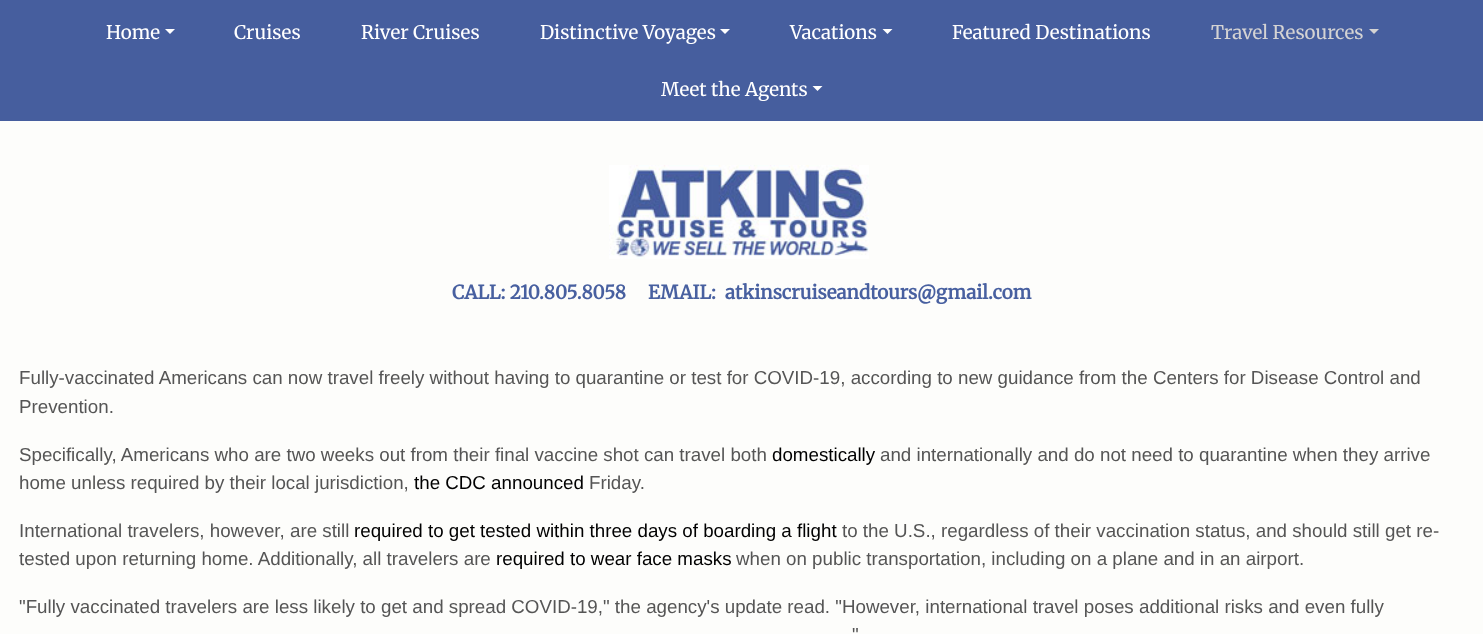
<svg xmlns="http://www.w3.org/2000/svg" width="1483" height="634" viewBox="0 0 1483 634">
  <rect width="100%" height="100%" fill="#fdfdfb"/>
  <path d="M0 0h1483v121H0z" fill="#465e9e"/>
  <path d="M165 29H175L170 34Z" fill="#fff"/>
  <path d="M720 29H730L725 34Z" fill="#fff"/>
  <path d="M882.5 29H892.5L887.5 34Z" fill="#fff"/>
  <path d="M1369 29H1379L1374 34Z" fill="#d4d3d3"/>
  <path d="M812.5 86H822.5L817.5 91Z" fill="#fff"/>
  <image x="609" y="165" width="260" height="94" href="img/1.png"/>
  <g font-family="Merriweather" font-size="18.75" font-weight="300" fill="#fff">
    <text x="106" y="39">Home</text>
    <text x="234" y="39">Cruises</text>
    <text x="361" y="39">River Cruises</text>
    <text x="540" y="39">Distinctive Voyages</text>
    <text x="790" y="39">Vacations</text>
    <text x="952" y="39">Featured Destinations</text>
  </g>
  <text x="1211" y="39" font-family="Merriweather" font-size="18.75" font-weight="300" fill="#d4d3d3">Travel Resources</text>
  <text x="661" y="96" font-family="Merriweather" font-size="18.75" font-weight="300" fill="#fff">Meet the Agents</text>
  <g font-family="Merriweather" font-size="18.75" font-weight="bold" fill="#4860a0">
    <text x="452" y="299">CALL: 210.805.8058</text>
    <text x="648" y="299">EMAIL:</text>
    <text x="725" y="299">atkinscruiseandtours@gmail.com</text>
  </g>
  <g font-family="Liberation Sans" font-size="18.75" fill="#555">
    <text x="19" y="384">Fully-vaccinated Americans can now travel freely without having to quarantine or test for COVID-19, according to new guidance from the Centers for Disease Control and</text>
    <text x="19" y="413">Prevention.</text>
    <text x="19" y="461">Specifically, Americans who are two weeks out from their final vaccine shot can travel both</text>
  </g>
  <text x="772" y="461" font-family="Liberation Sans" font-size="18.75" fill="#000">domestically</text>
  <g font-family="Liberation Sans" font-size="18.75" fill="#555">
    <text x="880" y="461">and internationally and do not need to quarantine when they arrive</text>
    <text x="19" y="489">home unless required by their local jurisdiction,</text>
  </g>
  <text x="414" y="489" font-family="Liberation Sans" font-size="18.75" fill="#000">the CDC announced</text>
  <g font-family="Liberation Sans" font-size="18.75" fill="#555">
    <text x="589" y="489">Friday.</text>
    <text x="19" y="537">International travelers, however, are still</text>
  </g>
  <text x="354" y="537" font-family="Liberation Sans" font-size="18.75" fill="#000">required to get tested within three days of boarding a flight</text>
  <g font-family="Liberation Sans" font-size="18.75" fill="#555">
    <text x="842" y="537">to the U.S., regardless of their vaccination status, and should still get re-</text>
    <text x="19" y="565">tested upon returning home. Additionally, all travelers are</text>
  </g>
  <text x="496" y="565" font-family="Liberation Sans" font-size="18.75" fill="#000">required to wear face masks</text>
  <g font-family="Liberation Sans" font-size="18.75" fill="#555">
    <text x="736" y="565">when on public transportation, including on a plane and in an airport.</text>
    <text x="19" y="613">"Fully vaccinated travelers are less likely to get and spread COVID-19," the agency's update read. "However, international travel poses additional risks and even fully</text>
    <text x="852" y="641">"</text>
  </g>
</svg>
